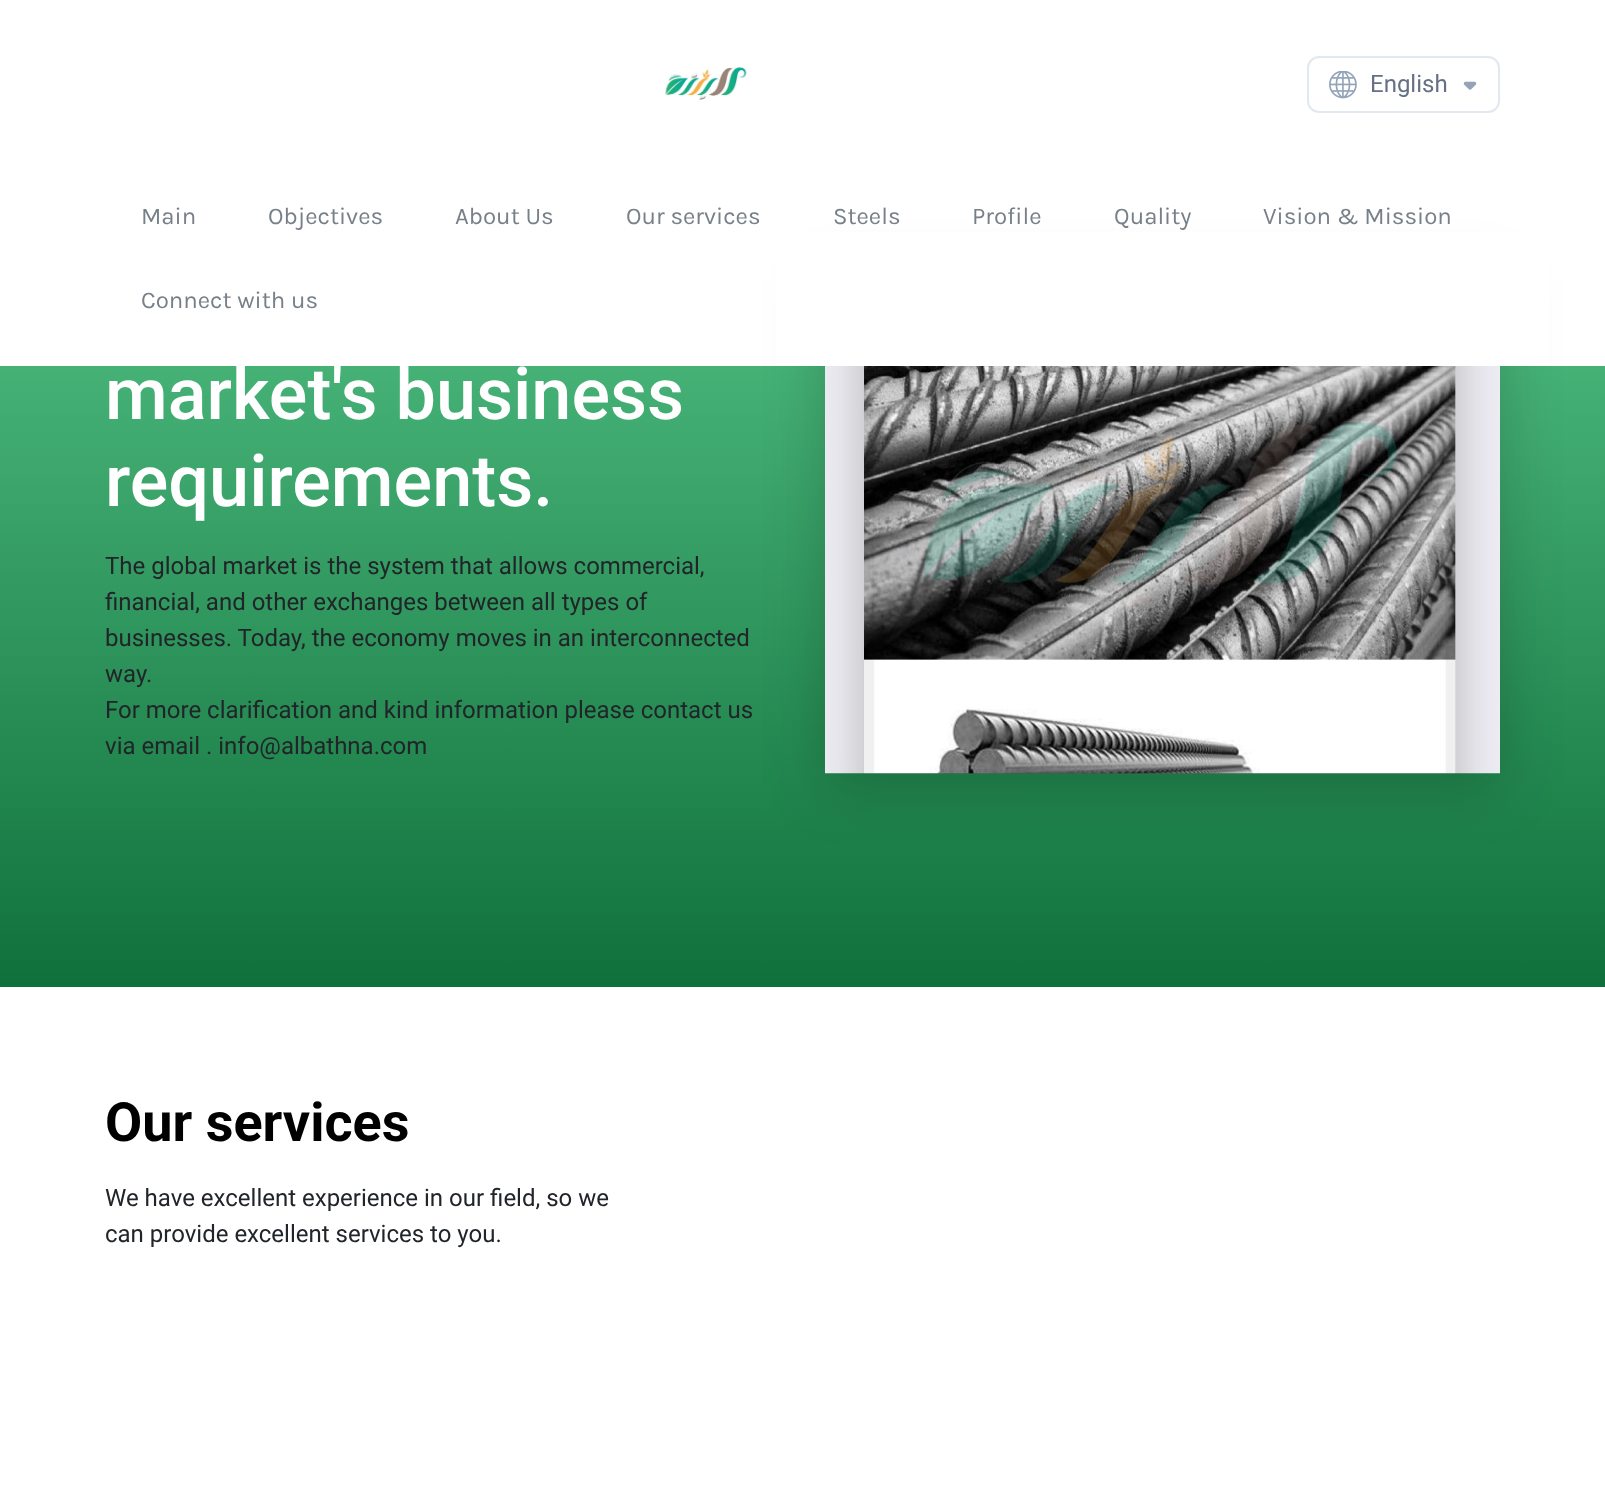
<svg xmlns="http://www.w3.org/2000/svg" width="1605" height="1486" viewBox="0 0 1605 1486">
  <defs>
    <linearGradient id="g1" gradientUnits="userSpaceOnUse" x1="803" y1="55" x2="803" y2="987"><stop offset="0" stop-color="#60d293"/><stop offset="1" stop-color="#10703b"/></linearGradient>
  </defs>
  <rect width="100%" height="100%" fill="#fff"/>
  <path d="M0 366h1605v621H0z" fill="url(#g1)"/>
  <path d="M825 281h675v505H825z" fill="#00000033" filter="blur(30px)"/>
  <path d="M776 232h773v134H776z" fill="#fff"/>
  <image x="665" y="67" width="82" height="33" href="img/1.png"/>
  <rect x="1308" y="57" width="191" height="55" rx="11" fill="none" stroke="#e2e8f0" stroke-width="2"/>
  <image x="1329" y="71" width="28" height="28" href="img/2.png"/>
  <image x="1463" y="81" width="14" height="9" href="img/3.png"/>
  <image x="825" y="366" width="675" height="408" href="img/4.png"/>
  <text x="1370" y="92" font-family="Roboto" font-size="24" fill="#667085">English</text>
  <g font-family="Karla" font-size="24" fill="#777f88">
    <text x="141" y="224">Main</text>
    <text x="268" y="224">Objectives</text>
    <text x="455" y="224">About Us</text>
    <text x="626" y="224">Our services</text>
    <text x="833" y="224">Steels</text>
    <text x="972" y="224">Profile</text>
    <text x="1114" y="224">Quality</text>
    <text x="1263" y="224">Vision &amp; Mission</text>
    <text x="141" y="308">Connect with us</text>
  </g>
  <g font-family="Roboto" font-size="72" font-weight="500" fill="#fff">
    <text x="105" y="419">market's business</text>
    <text x="105" y="506">requirements.</text>
  </g>
  <g font-family="Roboto" font-size="24" fill="#212529">
    <text x="105" y="574">The global market is the system that allows commercial,</text>
    <text x="105" y="610">financial, and other exchanges between all types of</text>
    <text x="105" y="646">businesses. Today, the economy moves in an interconnected</text>
    <text x="105" y="682">way.</text>
    <text x="105" y="718">For more clarification and kind information please contact us</text>
    <text x="105" y="754">via email . info@albathna.com</text>
  </g>
  <text x="105" y="1141" font-family="Roboto" font-size="54" font-weight="bold" fill="#000">Our services</text>
  <g font-family="Roboto" font-size="24" fill="#212529">
    <text x="105" y="1206">We have excellent experience in our field, so we</text>
    <text x="105" y="1242">can provide excellent services to you.</text>
  </g>
</svg>
